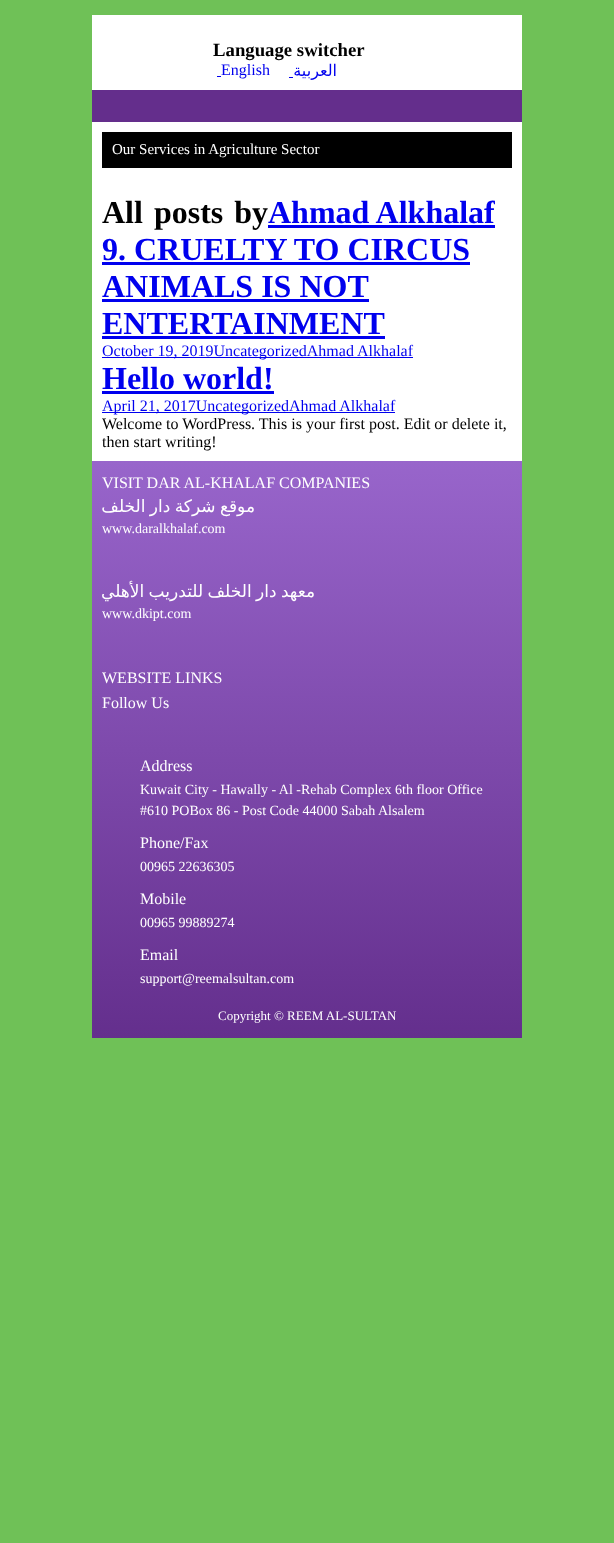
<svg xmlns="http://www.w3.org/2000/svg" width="614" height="1543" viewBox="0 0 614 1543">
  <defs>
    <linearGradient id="g1" gradientUnits="userSpaceOnUse" x1="307" y1="461" x2="307" y2="1038"><stop offset="0" stop-color="#9865cb"/><stop offset="1" stop-color="#642f8d"/></linearGradient>
  </defs>
  <rect width="100%" height="100%" fill="#6fc157"/>
  <path d="M92 15h430v75H92z" fill="#fff"/>
  <path d="M217 76h4v1H217z" fill="#00e"/>
  <path d="M289 77h4v1H289z" fill="#00e"/>
  <path d="M92 90h430v32H92z" fill="#642e8c"/>
  <path d="M92 122h430v339H92z" fill="#fff"/>
  <path d="M102 132h410v36H102z" fill="#000"/>
  <path d="M268 225h227v3H268z" fill="#00e"/>
  <path d="M102 262h368v3H102z" fill="#00e"/>
  <path d="M102 299h267v3H102z" fill="#00e"/>
  <path d="M102 336h283v3H102z" fill="#00e"/>
  <path d="M102 357h311v1H102z" fill="#00e"/>
  <path d="M102 391h172v3H102z" fill="#00e"/>
  <path d="M102 412h293v1H102z" fill="#00e"/>
  <path d="M92 461h430v577H92z" fill="url(#g1)"/>
  <text x="213" y="56" font-family="Liberation Serif" font-size="18.75" font-weight="bold" fill="#000">Language switcher</text>
  <text x="221" y="75" font-family="Liberation Serif" font-size="16" fill="#00e">English</text>
  <text x="337" y="76" font-family="DejaVu Sans" font-size="16" direction="rtl" fill="#00e">العربية</text>
  <text x="112" y="154" font-family="Liberation Serif" font-size="15" fill="#fff">Our Services in Agriculture Sector</text>
  <text x="102" y="223" word-spacing="3" font-family="Liberation Serif" font-size="32" font-weight="bold" fill="#000">All posts by</text>
  <g font-family="Liberation Serif" font-size="32" font-weight="bold" fill="#00e">
    <text x="268" y="223">Ahmad Alkhalaf</text>
    <text x="102" y="260">9. CRUELTY TO CIRCUS</text>
    <text x="102" y="297">ANIMALS IS NOT</text>
    <text x="102" y="334">ENTERTAINMENT</text>
  </g>
  <text x="102" y="356" font-family="Liberation Serif" font-size="16" fill="#00e">October 19, 2019UncategorizedAhmad Alkhalaf</text>
  <text x="102" y="389" font-family="Liberation Serif" font-size="32" font-weight="bold" fill="#00e">Hello world!</text>
  <text x="102" y="411" font-family="Liberation Serif" font-size="16" fill="#00e">April 21, 2017UncategorizedAhmad Alkhalaf</text>
  <g font-family="Liberation Serif" font-size="16" fill="#000">
    <text x="102" y="429">Welcome to WordPress. This is your first post. Edit or delete it,</text>
    <text x="102" y="447">then start writing!</text>
  </g>
  <text x="102" y="488" font-family="Liberation Serif" font-size="16" fill="#fff">VISIT DAR AL-KHALAF COMPANIES</text>
  <text x="255" y="512" word-spacing="-1" font-family="DejaVu Sans" font-size="17" direction="rtl" fill="#fff">موقع شركة دار الخلف</text>
  <text x="102" y="533" font-family="Liberation Serif" font-size="14" fill="#fff">www.daralkhalaf.com</text>
  <text x="315" y="597" word-spacing="-1" font-family="DejaVu Sans" font-size="17" direction="rtl" fill="#fff">معهد دار الخلف للتدريب الأهلي</text>
  <text x="102" y="618" font-family="Liberation Serif" font-size="14" fill="#fff">www.dkipt.com</text>
  <g font-family="Liberation Serif" font-size="16" fill="#fff">
    <text x="102" y="683">WEBSITE LINKS</text>
    <text x="102" y="708">Follow Us</text>
    <text x="140" y="771">Address</text>
  </g>
  <g font-family="Liberation Serif" font-size="14" fill="#fff">
    <text x="140" y="794">Kuwait City - Hawally - Al -Rehab Complex 6th floor Office</text>
    <text x="140" y="815">#610 POBox 86 - Post Code 44000 Sabah Alsalem</text>
  </g>
  <text x="140" y="848" font-family="Liberation Serif" font-size="16" fill="#fff">Phone/Fax</text>
  <text x="140" y="871" font-family="Liberation Serif" font-size="14" fill="#fff">00965 22636305</text>
  <text x="140" y="904" font-family="Liberation Serif" font-size="16" fill="#fff">Mobile</text>
  <text x="140" y="927" font-family="Liberation Serif" font-size="14" fill="#fff">00965 99889274</text>
  <text x="140" y="960" font-family="Liberation Serif" font-size="16" fill="#fff">Email</text>
  <text x="140" y="983" font-family="Liberation Serif" font-size="14" fill="#fff">support@reemalsultan.com</text>
  <text x="218" y="1020" font-family="Liberation Serif" font-size="13" fill="#fff">Copyright © REEM AL-SULTAN</text>
</svg>
